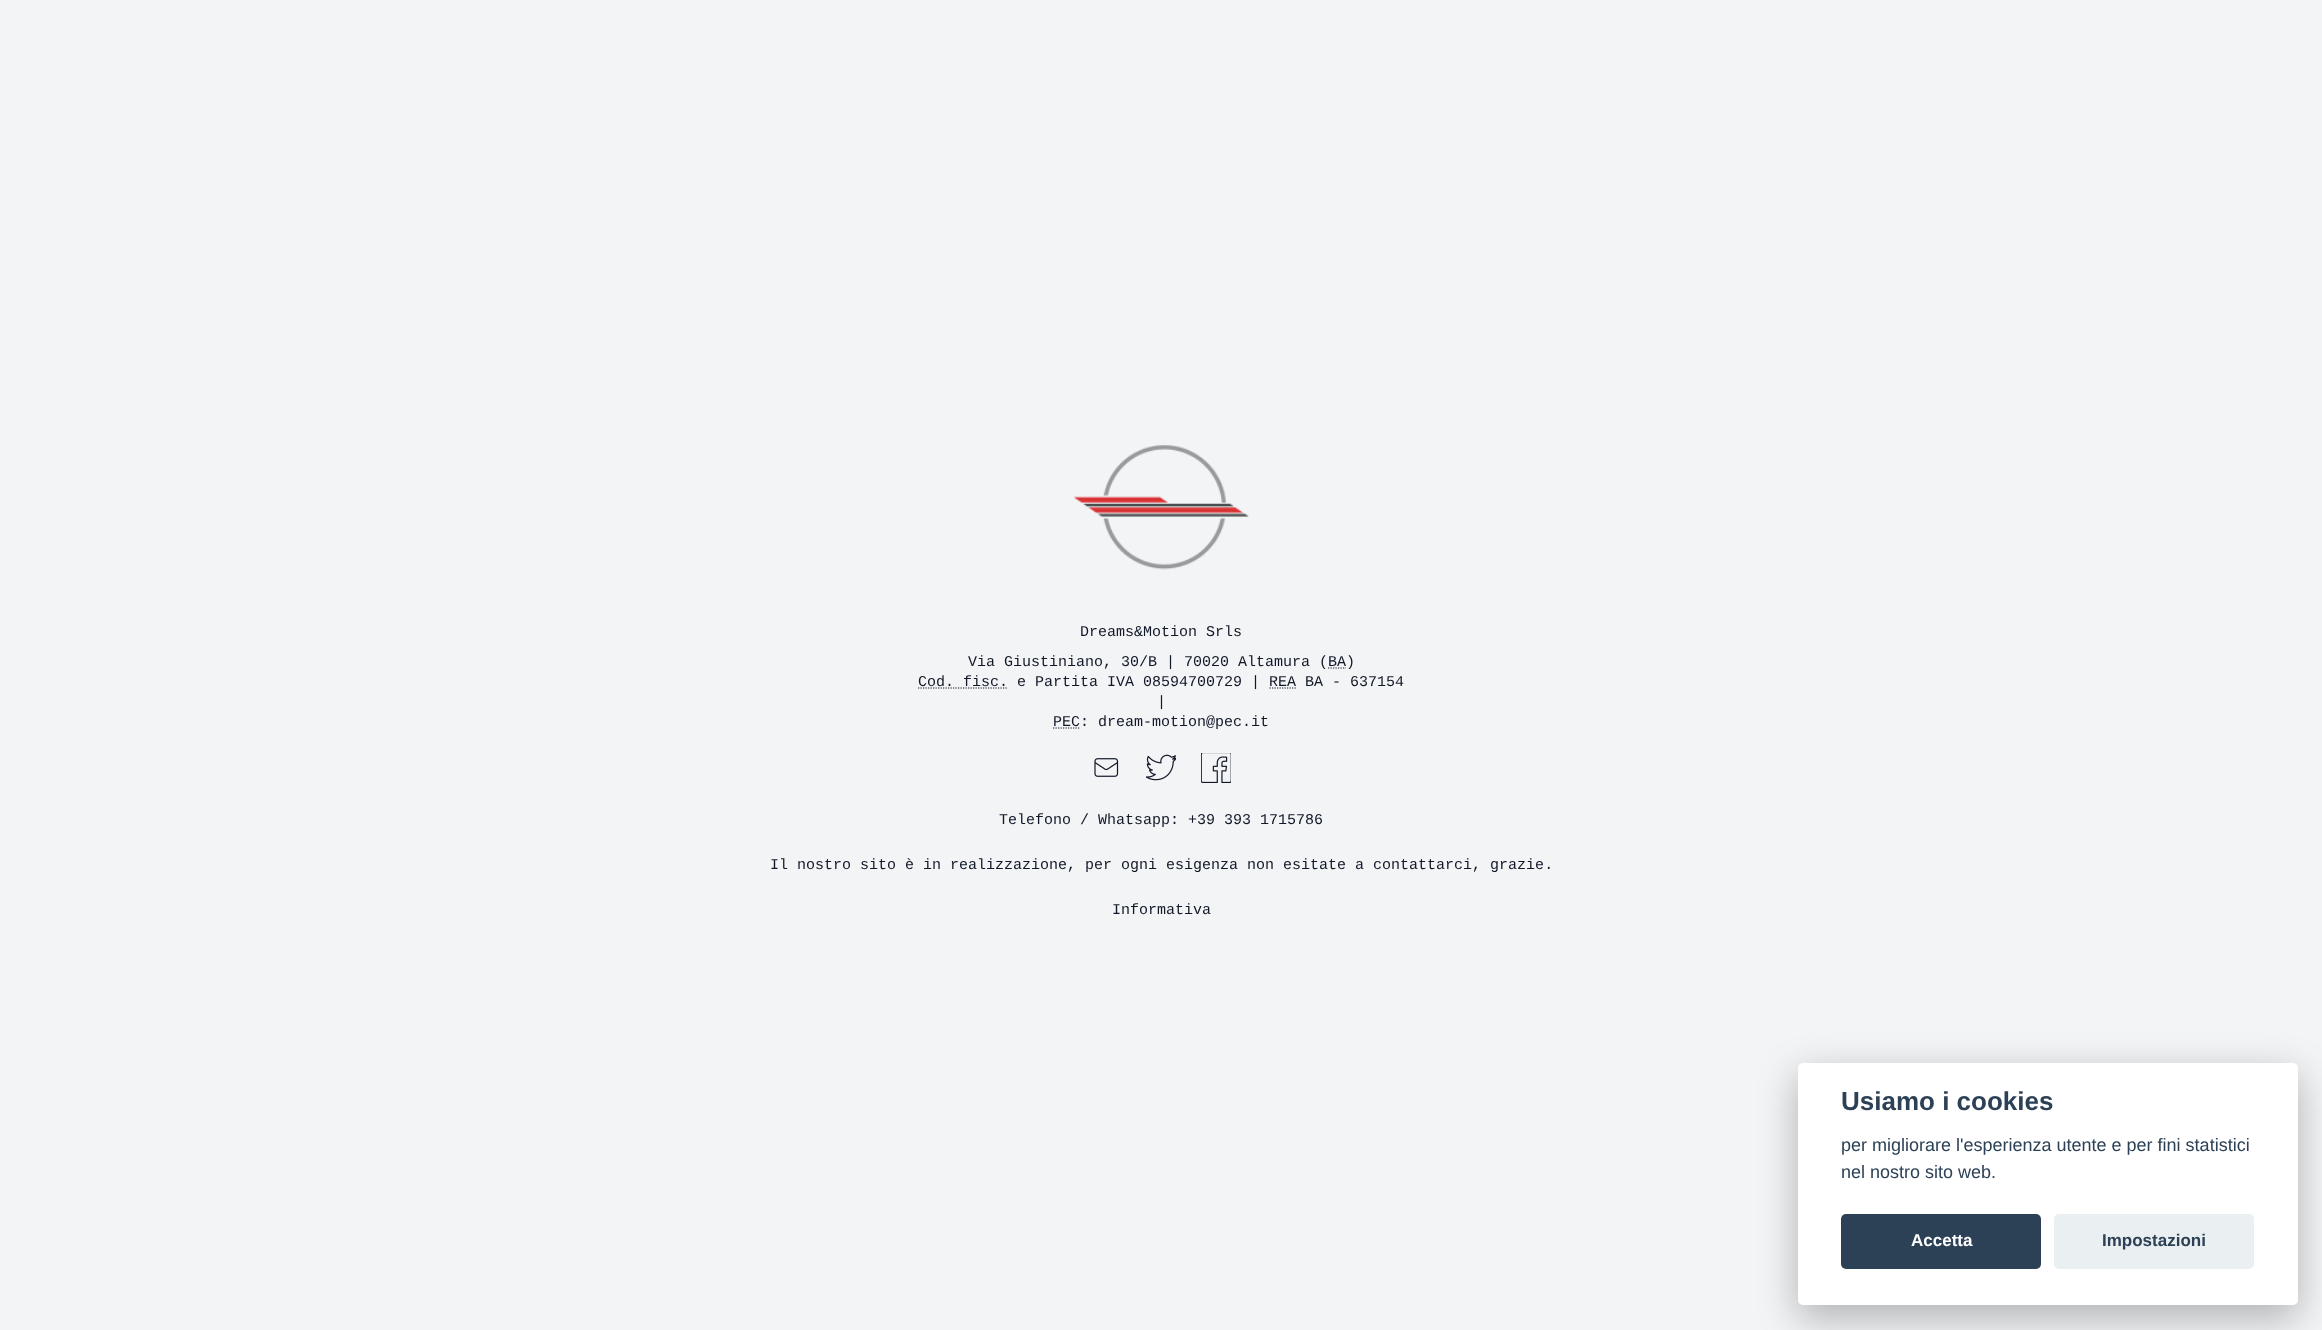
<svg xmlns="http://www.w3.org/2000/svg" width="2322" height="1330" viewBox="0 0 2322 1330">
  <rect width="100%" height="100%" fill="#f3f4f6"/>
  <image x="1073" y="445" width="176" height="125" href="img/1.png"/>
  <path d="M1328 668H1346" fill="none" stroke="#111827" stroke-width="1.2" stroke-dasharray="1.25 1.25"/>
  <path d="M918 688H1008" fill="none" stroke="#111827" stroke-width="1.2" stroke-dasharray="1.25 1.25"/>
  <path d="M1269.5 688H1296.5" fill="none" stroke="#111827" stroke-width="1.2" stroke-dasharray="1.25 1.25"/>
  <path d="M1053 728H1080" fill="none" stroke="#111827" stroke-width="1.2" stroke-dasharray="1.25 1.25"/>
  <image x="1094" y="758" width="25" height="19" href="img/2.png"/>
  <image x="1146" y="754" width="30" height="27" href="img/3.png"/>
  <image x="1201" y="753" width="30" height="30" href="img/4.png"/>
  <rect x="1798" y="1075" width="500" height="243" rx="5" fill="#02020347" filter="blur(19px)"/>
  <rect x="1798" y="1063" width="500" height="242" rx="5" fill="#fff"/>
  <rect x="1841" y="1214" width="200" height="55" rx="5" fill="#2d4156"/>
  <rect x="2054" y="1214" width="200" height="55" rx="5" fill="#eaeff2"/>
  <g font-family="Liberation Mono" font-size="15" fill="#111827">
    <text x="1080" y="636">Dreams&amp;Motion Srls</text>
    <text x="968" y="666">Via Giustiniano, 30/B | 70020 Altamura (BA)</text>
    <text x="918" y="686">Cod. fisc. e Partita IVA 08594700729 | REA BA - 637154</text>
    <text x="1157" y="706">|</text>
    <text x="1053" y="726">PEC: dream-motion@pec.it</text>
    <text x="999" y="824">Telefono / Whatsapp: +39 393 1715786</text>
    <text x="770" y="869">Il nostro sito è in realizzazione, per ogni esigenza non esitate a contattarci, grazie.</text>
    <text x="1112" y="914">Informativa</text>
  </g>
  <text x="1841" y="1110" font-family="Liberation Sans" font-size="26" font-weight="bold" fill="#2d4156">Usiamo i cookies</text>
  <g font-family="Liberation Sans" font-size="18" fill="#2d4156">
    <text x="1841" y="1151">per migliorare l'esperienza utente e per fini statistici</text>
    <text x="1841" y="1178">nel nostro sito web.</text>
  </g>
  <text x="1911" y="1246" font-family="Liberation Sans" font-size="17" font-weight="bold" fill="#fff">Accetta</text>
  <text x="2102" y="1246" font-family="Liberation Sans" font-size="17" font-weight="bold" fill="#2d4156">Impostazioni</text>
</svg>
